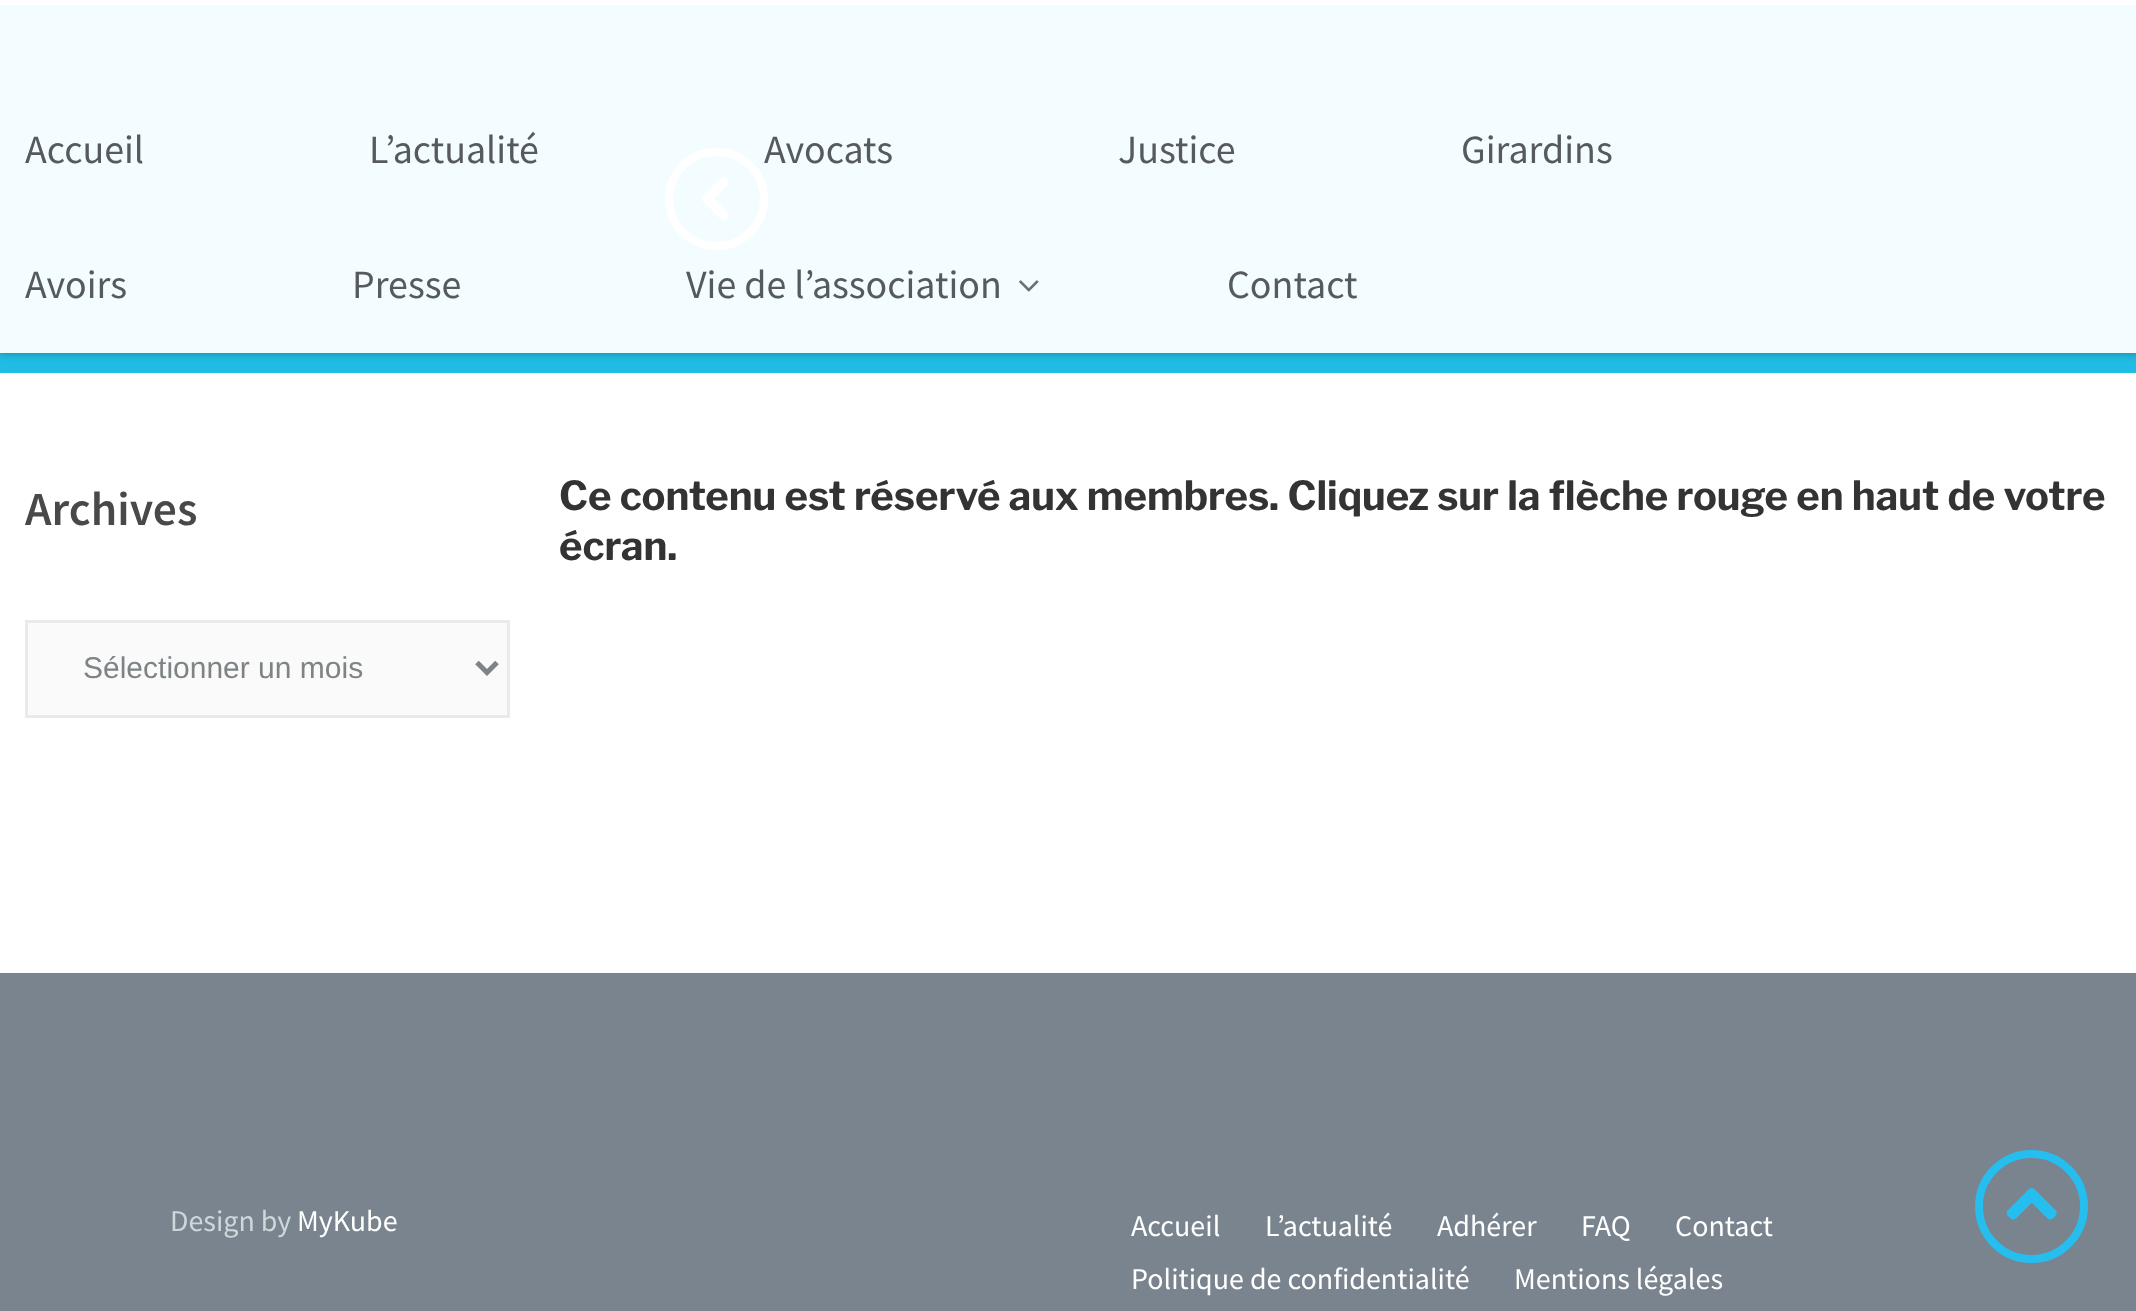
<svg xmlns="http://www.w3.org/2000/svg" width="2136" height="1311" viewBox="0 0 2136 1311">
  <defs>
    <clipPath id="clip1"><path d="M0 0H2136V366H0ZM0 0H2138V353H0Z" clip-rule="evenodd"/></clipPath>
  </defs>
  <rect width="100%" height="100%" fill="#fff"/>
  <path d="M0 5h2136v368H0z" fill="#20bce3"/>
  <rect x="669" y="152" width="95" height="94" rx="47" fill="none" stroke="#fff" stroke-width="8"/>
  <image x="701" y="176" width="28" height="45" href="img/1.png"/>
  <g clip-path="url(#clip1)">
    <path d="M0 0h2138v353H0z" fill="#0000004d" filter="blur(4px)"/>
  </g>
  <path d="M0 5h2136v348H0z" fill="#fffffff2"/>
  <image x="1019" y="280" width="20" height="12" href="img/2.png"/>
  <path d="M26.5 621.5h482v95H26.5z" fill="#fafafa" stroke="#eaeaea" stroke-width="3"/>
  <path d="M477 662.5L487 672.5L497 662.5" fill="none" stroke="#7e8385" stroke-width="5"/>
  <path d="M0 973h2136v338H0z" fill="#79848e"/>
  <circle cx="2031.5" cy="1206.5" r="52.5" fill="none" stroke="#26bdef" stroke-width="8"/>
  <image x="2006" y="1188" width="51" height="32" href="img/3.png"/>
  <g font-family="Source Sans Pro" font-size="40" fill="#565a5f">
    <text x="25" y="163">Accueil</text>
    <text x="369" y="163">L’actualité</text>
    <text x="764" y="163">Avocats</text>
    <text x="1118" y="163">Justice</text>
    <text x="1461" y="163">Girardins</text>
    <text x="25" y="298">Avoirs</text>
    <text x="352" y="298">Presse</text>
    <text x="686" y="298">Vie de l’association</text>
    <text x="1227" y="298">Contact</text>
  </g>
  <text x="25" y="525" font-family="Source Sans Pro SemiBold" font-size="47.5" font-weight="600" fill="#494949">Archives</text>
  <text x="83" y="678" font-family="Liberation Sans" font-size="30" fill="#7e8385">Sélectionner un mois</text>
  <g font-family="Libre Franklin" font-size="40" font-weight="bold" fill="#333">
    <text x="559" y="510">Ce contenu est réservé aux membres. Cliquez sur la flèche rouge en haut de votre</text>
    <text x="559" y="560">écran.</text>
  </g>
  <text x="170" y="1231" font-family="Source Sans Pro" font-size="30" fill="#cfd7da">Design by</text>
  <g font-family="Source Sans Pro" font-size="30" fill="#fff">
    <text x="297" y="1231">MyKube</text>
    <text x="1131" y="1236">Accueil</text>
    <text x="1265" y="1236">L’actualité</text>
    <text x="1437" y="1236">Adhérer</text>
    <text x="1581" y="1236">FAQ</text>
    <text x="1675" y="1236">Contact</text>
    <text x="1131" y="1289">Politique de confidentialité</text>
    <text x="1514" y="1289">Mentions légales</text>
  </g>
</svg>
